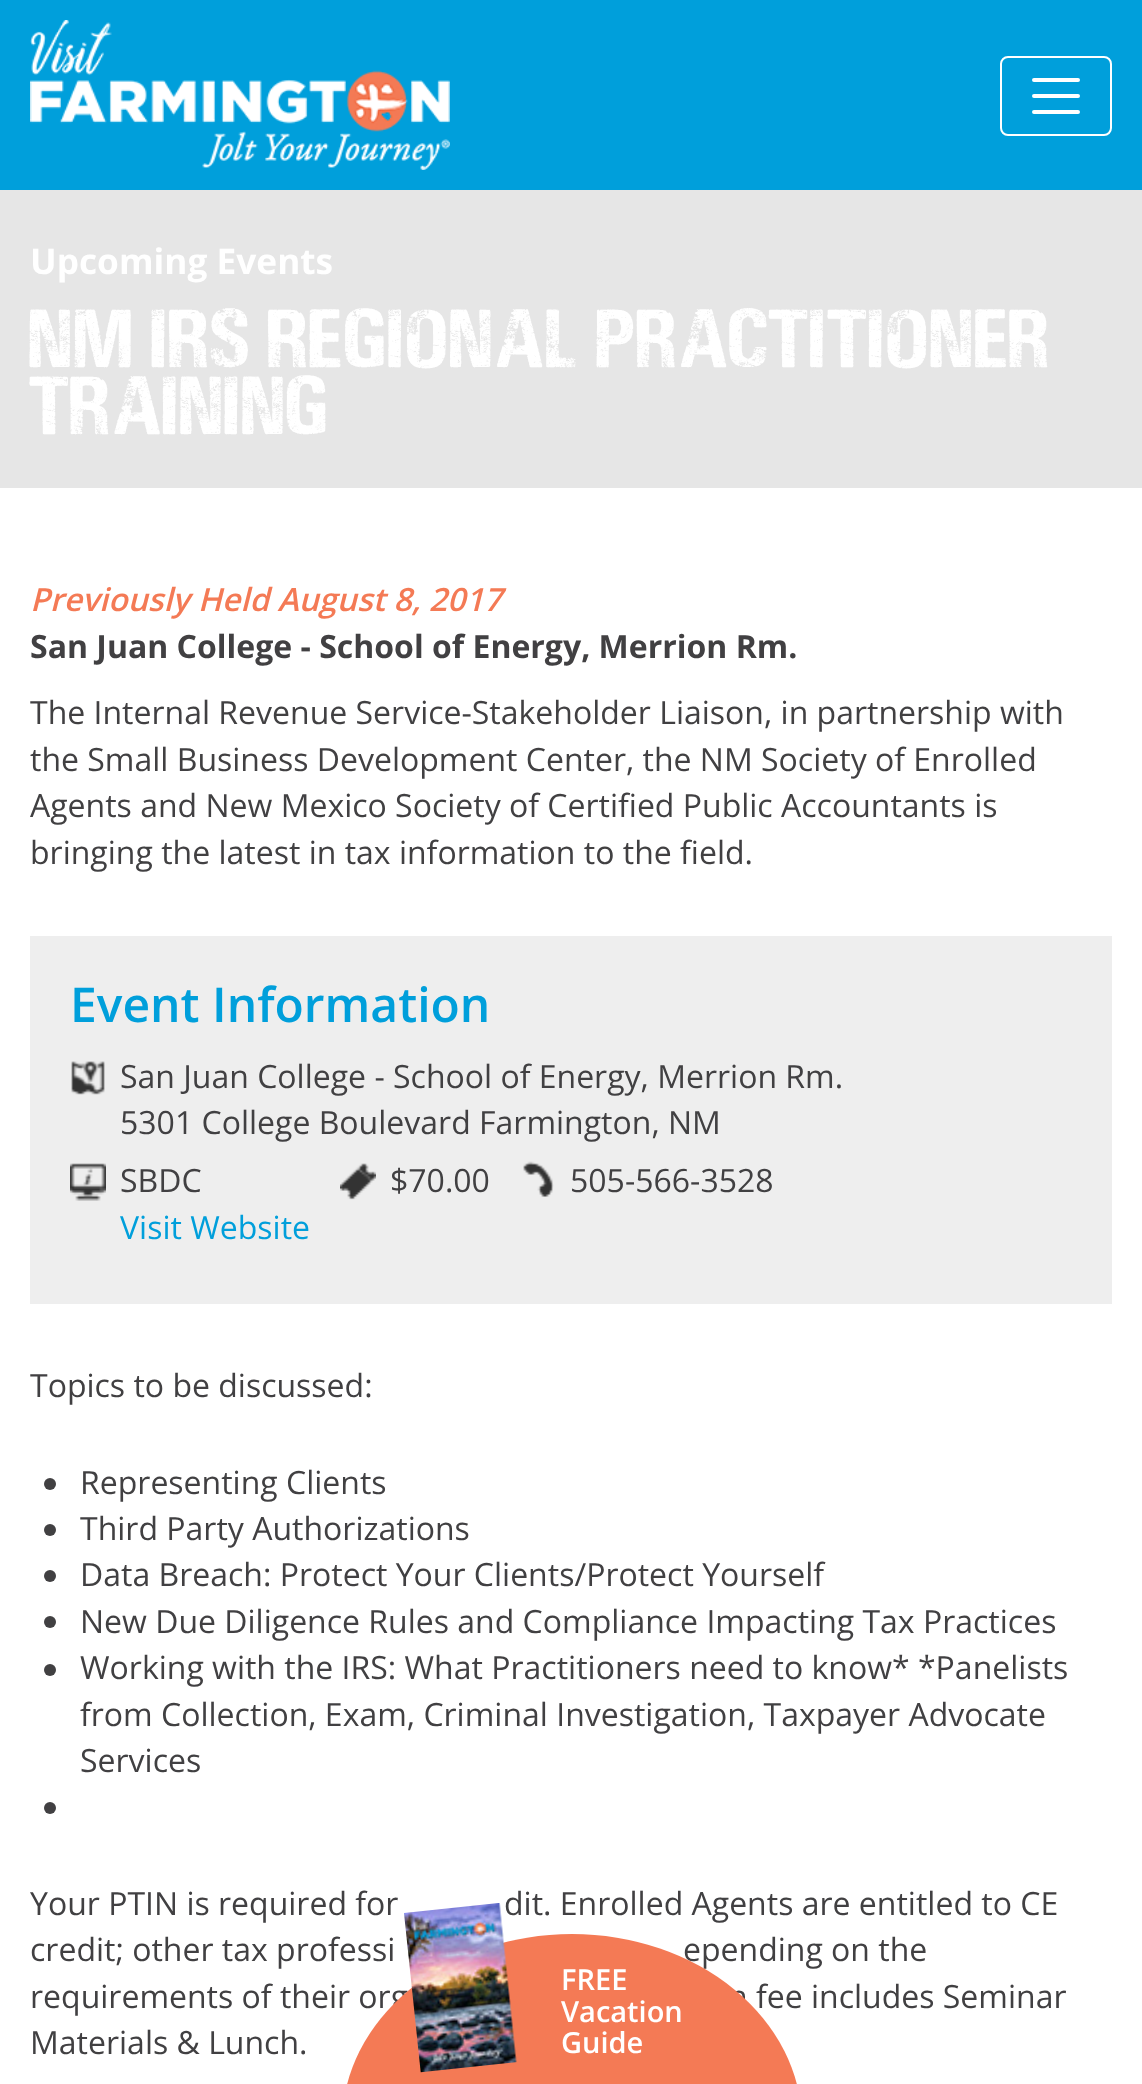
<svg xmlns="http://www.w3.org/2000/svg" width="1142" height="2084" viewBox="0 0 1142 2084">
  <rect width="100%" height="100%" fill="#fff"/>
  <path d="M0 0h1142v190H0z" fill="#009fdb"/>
  <image x="30" y="20" width="420" height="150" href="img/1.png"/>
  <rect x="1001" y="57" width="110" height="78" rx="7" fill="none" stroke="#fff" stroke-width="2"/>
  <path d="M1034 80H1078M1034 96H1078M1034 112H1078" fill="none" stroke="#fff" stroke-width="4" stroke-linecap="round"/>
  <path d="M0 190h1142v298H0z" fill="#e6e6e6"/>
  <path d="M30 936h1082v368H30z" fill="#eee"/>
  <image x="71" y="1061" width="34" height="34" href="img/2.png"/>
  <image x="70" y="1163" width="36" height="38" href="img/3.png"/>
  <image x="340" y="1163" width="36" height="37" href="img/4.png"/>
  <image x="523" y="1161" width="31" height="36" href="img/5.png"/>
  <circle cx="50" cy="1484" r="6" fill="#414042"/>
  <circle cx="50" cy="1530" r="6" fill="#414042"/>
  <circle cx="50" cy="1576" r="6" fill="#414042"/>
  <circle cx="50" cy="1622" r="6" fill="#414042"/>
  <circle cx="50" cy="1670" r="6" fill="#414042"/>
  <circle cx="50" cy="1808" r="6" fill="#414042"/>
  <text x="30" y="274" font-family="Open Sans" font-size="35.25" font-weight="bold" fill="#fff">Upcoming Events</text>
  <g font-family="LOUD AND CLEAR" font-size="96" fill="#fff">
    <text x="30" y="367">NM IRS Regional Practitioner</text>
    <text x="30" y="434">Training</text>
  </g>
  <text x="30" y="611" font-family="Open Sans" font-size="32" font-weight="600" font-style="italic" fill="#f47a55">Previously Held August 8, 2017</text>
  <text x="30" y="658" font-family="Open Sans" font-size="32" font-weight="bold" fill="#414042">San Juan College - School of Energy, Merrion Rm.</text>
  <g font-family="Open Sans" font-size="32" fill="#414042">
    <text x="30" y="724">The Internal Revenue Service-Stakeholder Liaison, in partnership with</text>
    <text x="30" y="771">the Small Business Development Center, the NM Society of Enrolled</text>
    <text x="30" y="817">Agents and New Mexico Society of Certified Public Accountants is</text>
    <text x="30" y="864">bringing the latest in tax information to the field.</text>
  </g>
  <text x="70" y="1022" font-family="Open Sans" font-size="48" font-weight="600" fill="#009fdb">Event Information</text>
  <g font-family="Open Sans" font-size="32" fill="#414042">
    <text x="120" y="1088">San Juan College - School of Energy, Merrion Rm.</text>
    <text x="120" y="1134">5301 College Boulevard Farmington, NM</text>
    <text x="120" y="1192">SBDC</text>
  </g>
  <text x="120" y="1239" font-family="Open Sans" font-size="32" fill="#009fdb">Visit Website</text>
  <g font-family="Open Sans" font-size="32" fill="#414042">
    <text x="390" y="1192">$70.00</text>
    <text x="570" y="1192">505-566-3528</text>
    <text x="30" y="1397">Topics to be discussed:</text>
    <text x="80" y="1494">Representing Clients</text>
    <text x="80" y="1540">Third Party Authorizations</text>
    <text x="80" y="1586">Data Breach: Protect Your Clients/Protect Yourself</text>
    <text x="80" y="1633">New Due Diligence Rules and Compliance Impacting Tax Practices</text>
    <text x="80" y="1679">Working with the IRS: What Practitioners need to know* *Panelists</text>
    <text x="80" y="1726">from Collection, Exam, Criminal Investigation, Taxpayer Advocate</text>
    <text x="80" y="1772">Services</text>
    <text x="30" y="1915">Your PTIN is required for</text>
    <text x="504" y="1915">dit. Enrolled Agents are entitled to CE</text>
    <text x="30" y="1961">credit; other tax professi</text>
    <text x="683" y="1961">epending on the</text>
    <text x="30" y="2008">requirements of their org</text>
    <text x="728" y="2008">n fee includes Seminar</text>
    <text x="30" y="2054">Materials &amp; Lunch.</text>
  </g>
  <rect x="342" y="1934" width="460" height="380" rx="230" fill="#f47a55"/>
  <image x="404" y="1903" width="113" height="170" href="img/6.png"/>
  <g font-family="Open Sans" font-size="29" font-weight="600" fill="#fff">
    <text x="561" y="1990">FREE</text>
    <text x="561" y="2022">Vacation</text>
    <text x="561" y="2053">Guide</text>
  </g>
</svg>
